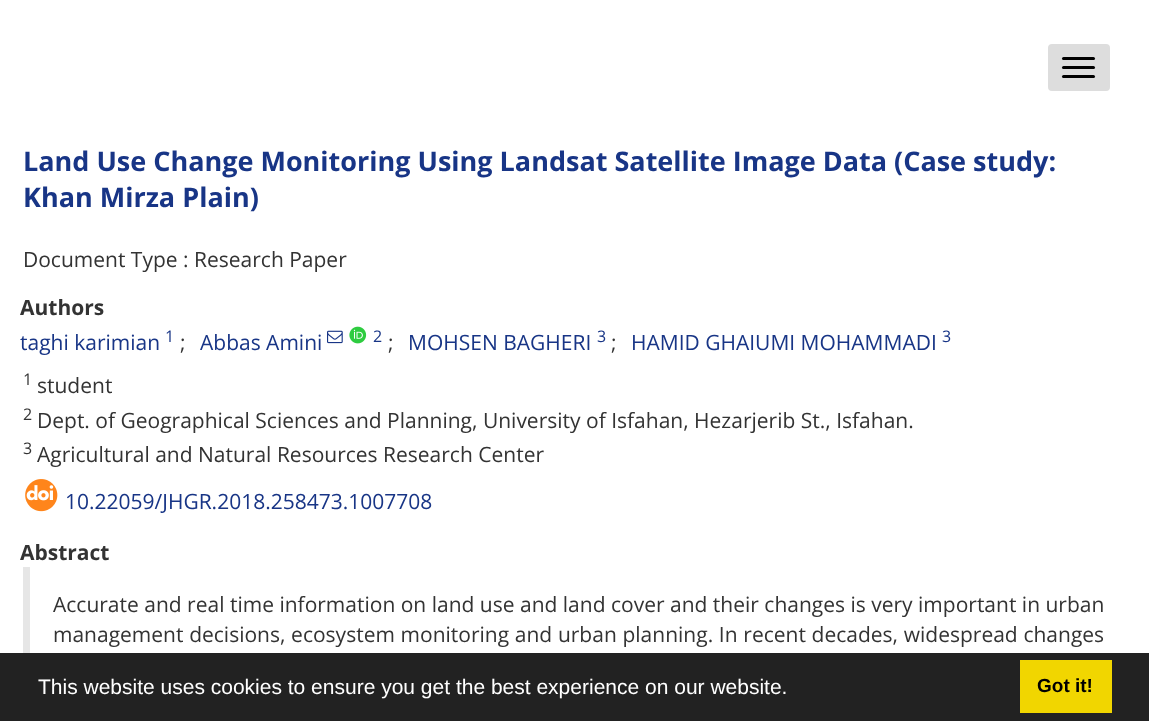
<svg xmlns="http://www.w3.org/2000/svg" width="1149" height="721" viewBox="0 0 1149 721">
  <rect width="100%" height="100%" fill="#fff"/>
  <rect x="1047" y="43" width="64" height="49" rx="5" fill="#ddd" stroke="#fff" stroke-width="2"/>
  <rect x="1062" y="57" width="33" height="3" rx="1.5" fill="#000"/>
  <rect x="1062" y="66" width="33" height="3" rx="1.5" fill="#000"/>
  <rect x="1062" y="75" width="33" height="3" rx="1.5" fill="#000"/>
  <image x="327" y="330" width="16" height="14" href="img/1.png"/>
  <image x="349" y="326" width="18" height="18" href="img/2.png"/>
  <image x="25" y="479" width="33" height="33" href="img/3.png"/>
  <path d="M23 567h7v86H23z" fill="#e6e6e6"/>
  <path d="M0 653h1149v68H0z" fill="#222"/>
  <path d="M1020 660h92v53H1020z" fill="#f1d600"/>
  <g font-family="Open Sans" font-size="27" font-weight="bold" fill="#183586">
    <text x="23" y="171">Land Use Change Monitoring Using Landsat Satellite Image Data (Case study:</text>
    <text x="23" y="207">Khan Mirza Plain)</text>
  </g>
  <text x="23" y="267" font-family="Open Sans" font-size="21" fill="#333">Document Type : Research Paper</text>
  <text x="20" y="315" font-family="Open Sans" font-size="21" font-weight="bold" fill="#333">Authors</text>
  <text x="20" y="350" font-family="Open Sans" font-size="21" fill="#183586">taghi karimian</text>
  <text x="165" y="342" font-family="Open Sans" font-size="16" fill="#183586">1</text>
  <text x="180" y="350" font-family="Open Sans" font-size="21" fill="#333">;</text>
  <text x="200" y="350" font-family="Open Sans" font-size="21" fill="#183586">Abbas Amini</text>
  <text x="373" y="342" font-family="Open Sans" font-size="16" fill="#183586">2</text>
  <text x="388" y="350" font-family="Open Sans" font-size="21" fill="#333">;</text>
  <text x="408" y="350" font-family="Open Sans" font-size="21" fill="#183586">MOHSEN BAGHERI</text>
  <text x="597" y="342" font-family="Open Sans" font-size="16" fill="#183586">3</text>
  <text x="611" y="350" font-family="Open Sans" font-size="21" fill="#333">;</text>
  <text x="631" y="350" font-family="Open Sans" font-size="21" fill="#183586">HAMID GHAIUMI MOHAMMADI</text>
  <text x="942" y="342" font-family="Open Sans" font-size="16" fill="#183586">3</text>
  <text x="23" y="385" font-family="Open Sans" font-size="16" fill="#333">1</text>
  <text x="37" y="393" font-family="Open Sans" font-size="21" fill="#333">student</text>
  <text x="23" y="420" font-family="Open Sans" font-size="16" fill="#333">2</text>
  <text x="37" y="428" font-family="Open Sans" font-size="21" fill="#333">Dept. of Geographical Sciences and Planning, University of Isfahan, Hezarjerib St., Isfahan.</text>
  <text x="23" y="454" font-family="Open Sans" font-size="16" fill="#333">3</text>
  <text x="37" y="462" font-family="Open Sans" font-size="21" fill="#333">Agricultural and Natural Resources Research Center</text>
  <text x="65" y="509" font-family="Open Sans" font-size="21" fill="#183586">10.22059/JHGR.2018.258473.1007708</text>
  <text x="20" y="560" font-family="Open Sans" font-size="21" font-weight="bold" fill="#333">Abstract</text>
  <g font-family="Open Sans" font-size="21" fill="#333">
    <text x="53" y="612">Accurate and real time information on land use and land cover and their changes is very important in urban</text>
    <text x="53" y="642" word-spacing="0.25">management decisions, ecosystem monitoring and urban planning. In recent decades, widespread changes</text>
  </g>
  <text x="38" y="694" font-family="Liberation Sans" font-size="21" fill="#fff">This website uses cookies to ensure you get the best experience on our website.</text>
  <text x="1037" y="692" font-family="Liberation Sans" font-size="19" font-weight="bold" fill="#000">Got it!</text>
</svg>
